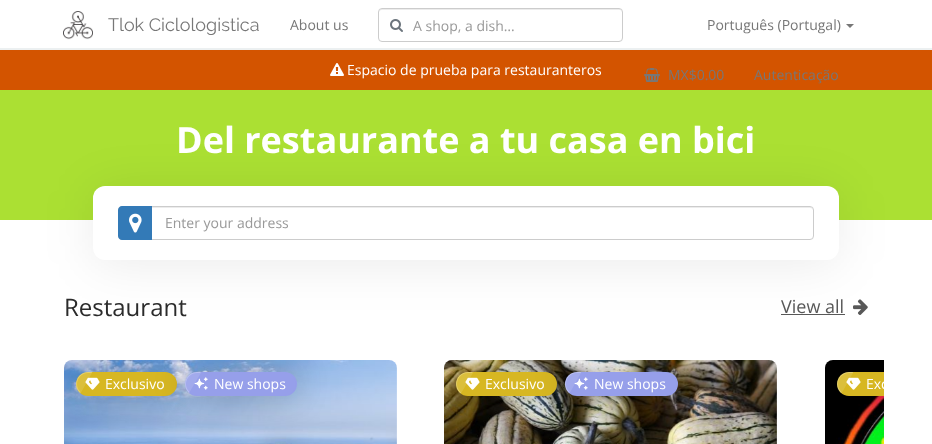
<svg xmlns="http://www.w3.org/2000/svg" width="932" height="444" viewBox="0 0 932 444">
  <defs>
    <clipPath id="clip1"><rect x="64" y="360" width="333" height="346" rx="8"/></clipPath>
    <clipPath id="clip2"><rect x="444" y="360" width="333" height="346" rx="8"/></clipPath>
    <clipPath id="clip3"><path d="M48 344h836v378H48z"/></clipPath>
    <clipPath id="clip4"><rect x="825" y="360" width="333" height="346" rx="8"/></clipPath>
    <clipPath id="clip5"><path d="M48 344h836v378H48z"/></clipPath>
  </defs>
  <rect width="100%" height="100%" fill="#fff"/>
  <path d="M0 48h932v2H0z" fill="#ecf0f1"/>
  <image x="63" y="11" width="30" height="29" href="img/1.png"/>
  <path d="M382 10H620L622 11V13C622 11 621 9 619 9H382C380 9 379 11 379 13C379 11 380 10 382 10Z" fill="#ececec"/>
  <rect x="378.5" y="8.5" width="244" height="33" rx="3.5" fill="none" stroke="#ccc"/>
  <image x="390" y="19" width="13" height="13" href="img/2.png"/>
  <path d="M846 24H854L850 28Z" fill="#777"/>
  <path d="M0 50h932v40H0z" fill="#d35400"/>
  <image x="644" y="68" width="16" height="14" href="img/3.png"/>
  <image x="330" y="63" width="14" height="13" href="img/4.png"/>
  <path d="M0 90h932v130H0z" fill="#abe033"/>
  <path d="M781 314h64v1H781z" fill="#585858"/>
  <image x="853" y="299" width="15" height="16" href="img/6.png"/>
  <rect x="93" y="190" width="746" height="74" rx="12" fill="#00000014" filter="blur(25px)"/>
  <rect x="93" y="186" width="746" height="74" rx="12" fill="#fff"/>
  <path d="M122 208H810C812 208 813 209 813 211C813 209 812 207 810 207H122C120 207 119 209 119 211C119 209 120 208 122 208Z" fill="#ececec"/>
  <rect x="118.5" y="206.5" width="695" height="33" rx="3.5" fill="none" stroke="#ccc"/>
  <path d="M122 206H152V240H122C120 240 118 238 118 236V210C118 208 120 206 122 206Z" fill="#337ab7"/>
  <image x="129" y="213" width="13" height="20" href="img/5.png"/>
  <image x="64" y="360" width="333" height="84" href="img/7.png"/>
  <g clip-path="url(#clip1)">
    <rect x="76" y="372" width="101" height="24" rx="12" fill="#00000040" filter="blur(16px)"/>
  </g>
  <rect x="76" y="372" width="101" height="24" rx="12" fill="#d7b722"/>
  <path d="M88 372H92L80 393C72 386 77 372 88 372Z" fill="#ffffff40"/>
  <rect x="77" y="373" width="99" height="22" rx="11" fill="#d7b722"/>
  <image x="85" y="377" width="15" height="13" href="img/8.png"/>
  <path d="M88 372H92.5L80.5 393.5C72 386.5 76.5 372 88 372Z" fill="#ffffff1f"/>
  <g clip-path="url(#clip1)">
    <rect x="185" y="372" width="112" height="24" rx="12" fill="#00000040" filter="blur(16px)"/>
  </g>
  <rect x="185" y="372" width="112" height="24" rx="12" fill="#969fea"/>
  <path d="M197 372H200.5L189 393C181 385.5 186 372 197 372Z" fill="#ffffff40"/>
  <rect x="186" y="373" width="110" height="22" rx="11" fill="#969fea"/>
  <image x="194" y="377" width="14" height="13" href="img/9.png"/>
  <path d="M197 372H201.5L189 393C181 386 186 372 197 372Z" fill="#ffffff1f"/>
  <image x="444" y="360" width="333" height="84" href="img/10.png"/>
  <g clip-path="url(#clip2)">
    <rect x="456" y="372" width="101" height="24" rx="12" fill="#00000040" filter="blur(16px)"/>
  </g>
  <rect x="456" y="372" width="101" height="24" rx="12" fill="#d7b722"/>
  <path d="M468 372H472.5L460.5 393.5C452 386.5 456.5 372 468 372Z" fill="#ffffff40"/>
  <rect x="457" y="373" width="99" height="22" rx="11" fill="#d7b722"/>
  <image x="465" y="377" width="15" height="13" href="img/8.png"/>
  <path d="M468 372H473.5L461 393.5C452 387 456.5 372 468 372Z" fill="#ffffff1f"/>
  <g clip-path="url(#clip2)">
    <rect x="565" y="372" width="113" height="24" rx="12" fill="#00000040" filter="blur(16px)"/>
  </g>
  <rect x="565" y="372" width="113" height="24" rx="12" fill="#969fea"/>
  <path d="M577 372H581L569 393C561 386 566 372 577 372Z" fill="#ffffff40"/>
  <rect x="566" y="373" width="111" height="22" rx="11" fill="#969fea"/>
  <image x="574" y="377" width="14" height="13" href="img/9.png"/>
  <path d="M577 372H581.5L569.5 393.5C561 386.5 565.5 372 577 372Z" fill="#ffffff1f"/>
  <image x="825" y="360" width="59" height="84" href="img/11.png"/>
  <g clip-path="url(#clip3)">
    <g clip-path="url(#clip4)">
      <rect x="837" y="372" width="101" height="24" rx="12" fill="#00000040" filter="blur(16px)"/>
    </g>
  </g>
  <path d="M849 372H884V396H849C842.5 396 837 390.5 837 384C837 377.5 842.5 372 849 372Z" fill="#d7b722"/>
  <path d="M849 372H853L841 393C833 386 838 372 849 372Z" fill="#ffffff40"/>
  <path d="M849 373H884V395H849C843 395 838 390 838 384C838 378 843 373 849 373Z" fill="#d7b722"/>
  <image x="846" y="377" width="15" height="13" href="img/8.png"/>
  <path d="M849 372H853.5L841.5 393.5C833 386.5 837.5 372 849 372Z" fill="#ffffff1f"/>
  <text x="108" y="31" font-family="Raleway" font-size="18" fill="#777">Tlok Ciclologistica</text>
  <text x="290" y="30" font-family="Open Sans" font-size="14" fill="#777">About us</text>
  <text x="413" y="31" font-family="Open Sans" font-size="14" fill="#999">A shop, a dish…</text>
  <g font-family="Open Sans" font-size="14" fill="#777">
    <text x="707" y="30">Português (Portugal)</text>
    <text x="668" y="80">MX$0.00</text>
    <text x="754" y="80">Autenticação</text>
  </g>
  <text x="347" y="75" font-family="Open Sans" font-size="14" fill="#fff">Espacio de prueba para restauranteros</text>
  <text x="176" y="153" font-family="Open Sans" font-size="36" font-weight="bold" fill="#fff">Del restaurante a tu casa en bici</text>
  <text x="165" y="228" font-family="Open Sans" font-size="14" fill="#999">Enter your address</text>
  <text x="64" y="316" font-family="Open Sans" font-size="24" fill="#2b2b2b">Restaurant</text>
  <text x="781" y="313" font-family="Open Sans" font-size="18" fill="#585858">View all</text>
  <g font-family="Open Sans" font-size="14" fill="#fff">
    <text x="105" y="389">Exclusivo</text>
    <text x="214" y="389">New shops</text>
    <text x="485" y="389">Exclusivo</text>
    <text x="594" y="389">New shops</text>
  </g>
  <g clip-path="url(#clip5)">
    <text x="866" y="389" font-family="Open Sans" font-size="14" fill="#fff">Exc</text>
  </g>
</svg>
